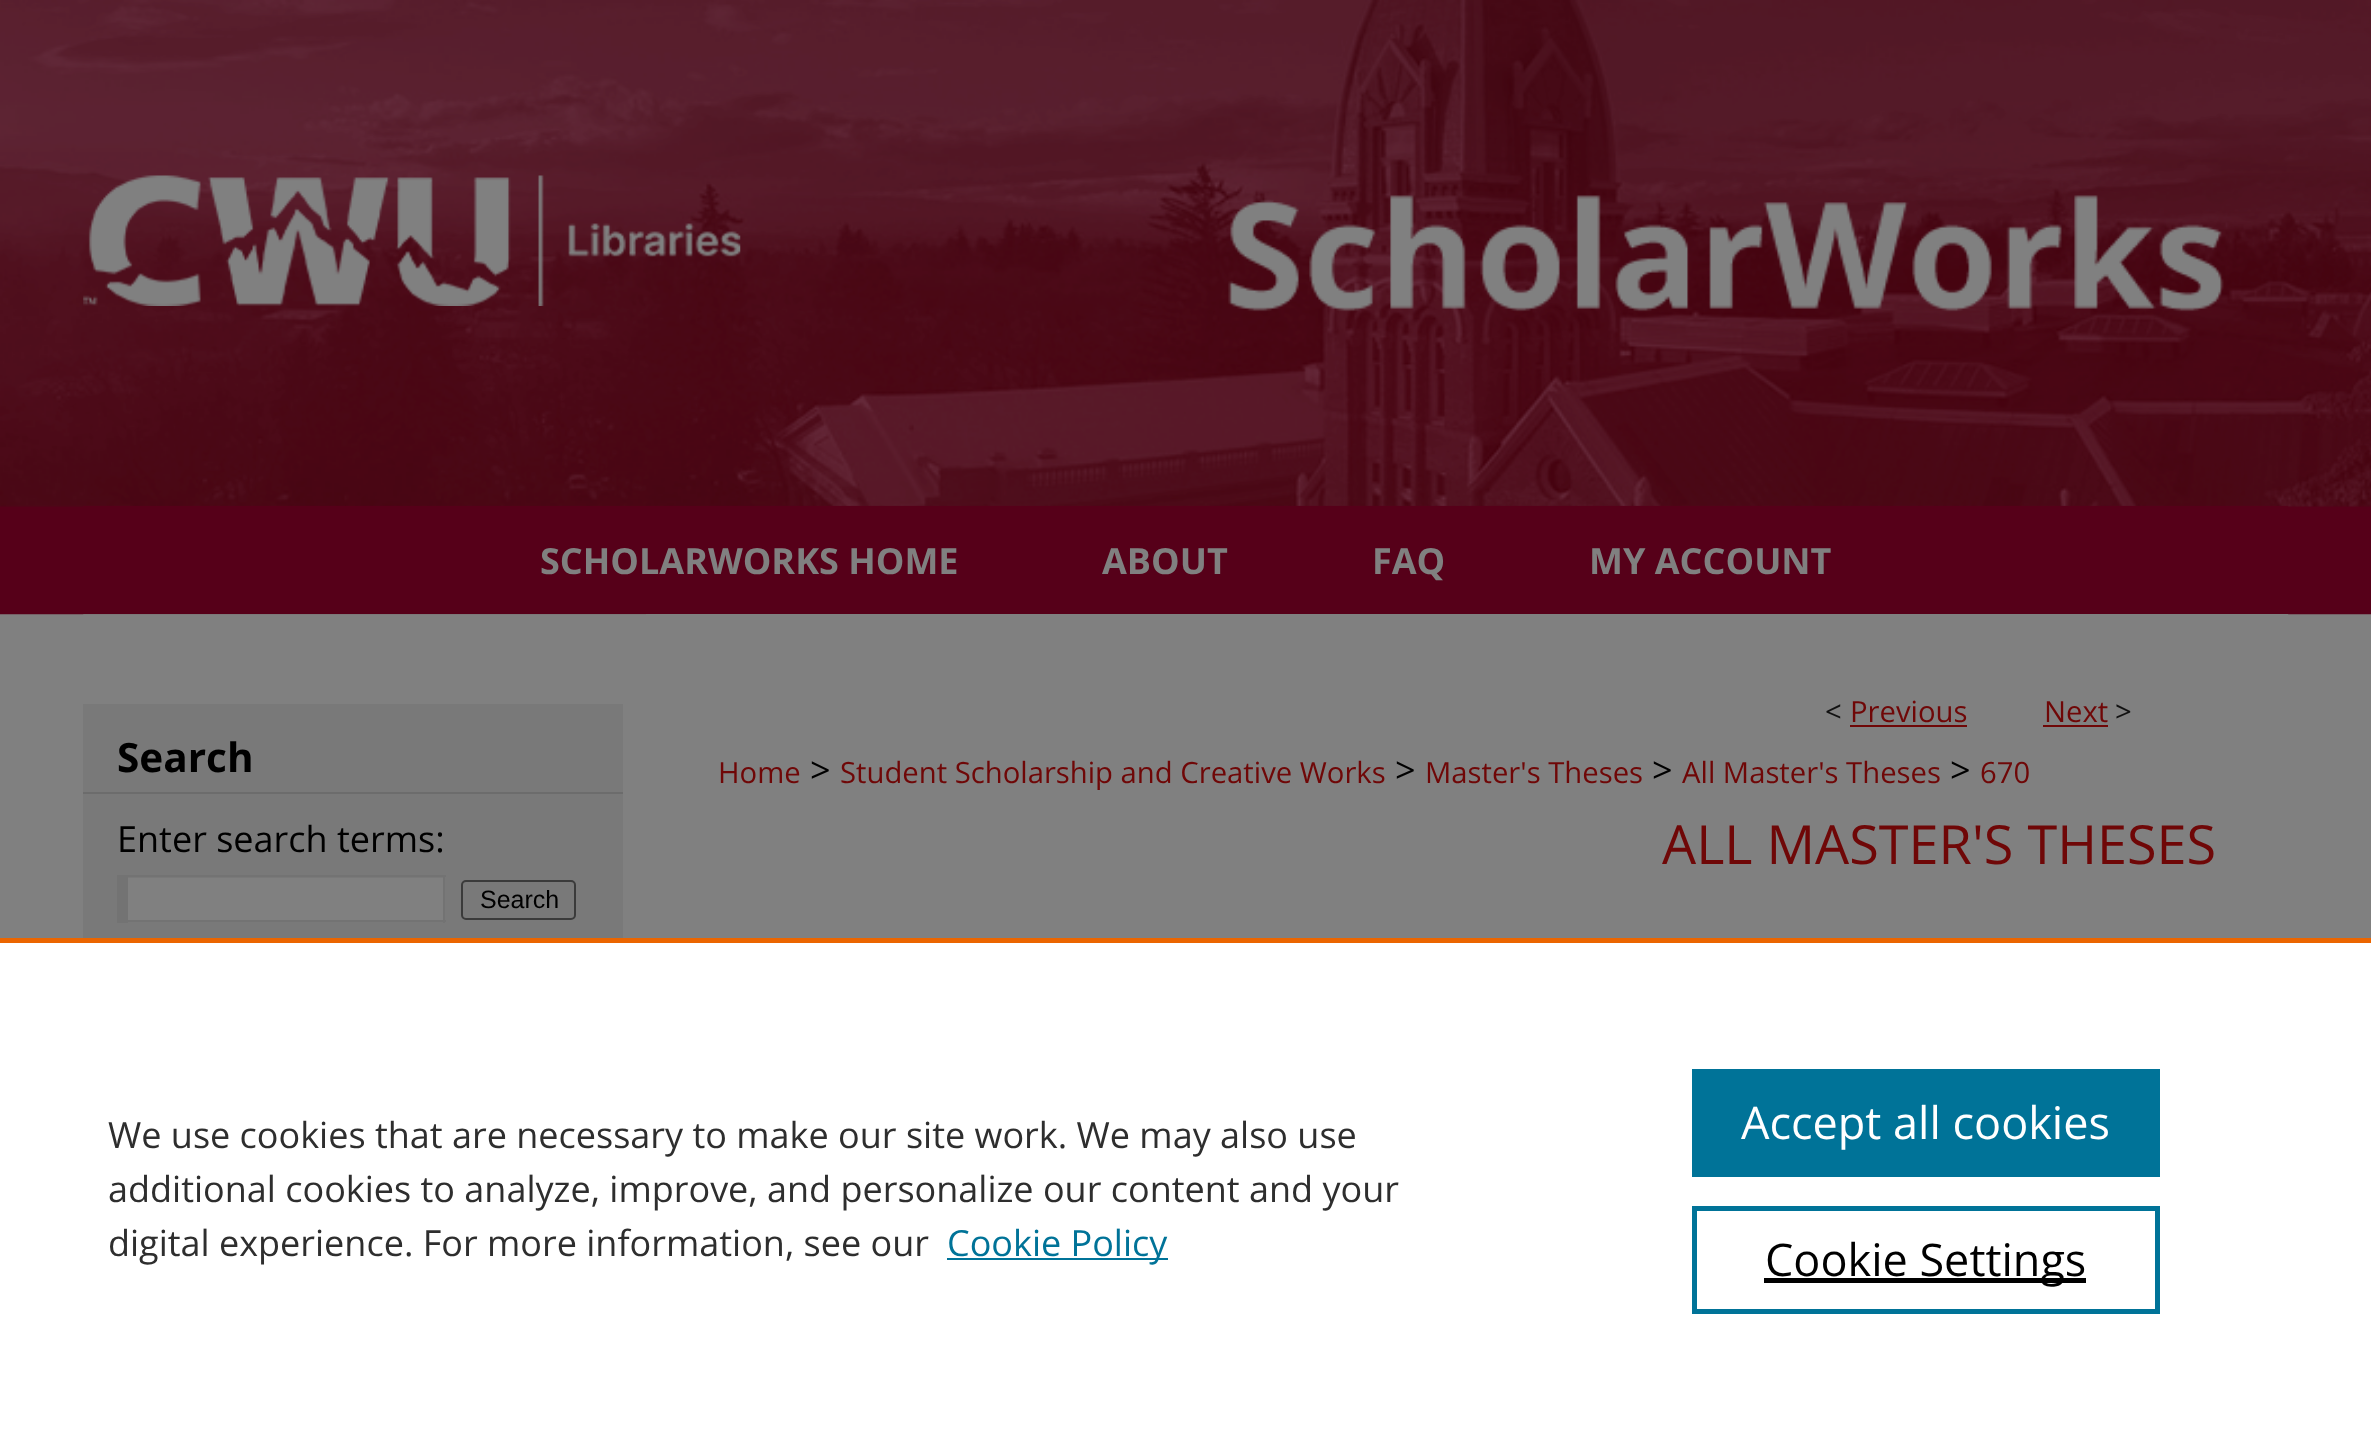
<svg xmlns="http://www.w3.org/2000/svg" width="2371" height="1432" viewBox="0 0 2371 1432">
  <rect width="100%" height="100%" fill="#808080"/>
  <image x="0" y="0" width="2371" height="615" href="img/1.png"/>
  <image x="83" y="175" width="658" height="131" href="img/2.png"/>
  <image x="1228" y="195" width="996" height="117" href="img/3.png"/>
  <path d="M83 506h2205v1H83z" fill="#560019"/>
  <image x="83" y="614" width="2206" height="1" href="img/4.png"/>
  <path d="M83 704h540v234H83z" fill="#797979"/>
  <path d="M83 792h540v2H83z" fill="#6c6c6c"/>
  <path d="M128 878h315v42H128z" fill="#808080"/>
  <path d="M128 875h318v2H128z" fill="#737373"/>
  <path d="M443 875h2v48H443z" fill="#737373"/>
  <path d="M128 920h318v2H128z" fill="#737373"/>
  <path d="M117 875h11v48H117z" fill="#737373"/>
  <rect x="462" y="881" width="113" height="38" rx="4" fill="none" stroke="#3b3b3b" stroke-width="2"/>
  <path d="M646 614h1642v1H646z" fill="#808080"/>
  <path d="M1850 725h117v2H1850z" fill="#6f0707"/>
  <path d="M2043 725h65v2H2043z" fill="#6f0707"/>
  <path d="M0 943h2371v489H0z" fill="#fff"/>
  <path d="M0 938h2371v5H0z" fill="#eb6500"/>
  <path d="M947 1258h221v2H947z" fill="#007398"/>
  <path d="M1692 1069h468v108H1692z" fill="#007398"/>
  <path d="M1694.5 1208.5h463v103H1694.5z" fill="none" stroke="#007398" stroke-width="5"/>
  <path d="M1764 1278h322v5H1764z" fill="#000"/>
  <g font-family="Open Sans" font-size="36" font-weight="bold" fill="#808080">
    <text x="540" y="574">SCHOLARWORKS HOME</text>
    <text x="1102" y="574">ABOUT</text>
    <text x="1372" y="574">FAQ</text>
    <text x="1589" y="574">MY ACCOUNT</text>
  </g>
  <text x="117" y="772" font-family="Open Sans" font-size="40.5" font-weight="bold" fill="#000">Search</text>
  <text x="117" y="852" font-family="Open Sans" font-size="36" fill="#000">Enter search terms:</text>
  <text x="480" y="908" font-family="Liberation Sans" font-size="25" fill="#000">Search</text>
  <text x="1825" y="722" font-family="Open Sans" font-size="29.25" fill="#111">&lt;</text>
  <g font-family="Open Sans" font-size="29.25" fill="#6f0707">
    <text x="1850" y="722">Previous</text>
    <text x="2044" y="722">Next</text>
  </g>
  <text x="2115" y="722" font-family="Open Sans" font-size="29.25" fill="#111">&gt;</text>
  <text x="718" y="783" font-family="Open Sans" font-size="29.25" fill="#6f0707">Home</text>
  <text x="810" y="783" font-family="Open Sans" font-size="36" fill="#000">&gt;</text>
  <text x="840" y="783" font-family="Open Sans" font-size="29.25" fill="#6f0707">Student Scholarship and Creative Works</text>
  <text x="1395" y="783" font-family="Open Sans" font-size="36" fill="#000">&gt;</text>
  <text x="1425" y="783" font-family="Open Sans" font-size="29.25" fill="#6f0707">Master's Theses</text>
  <text x="1652" y="783" font-family="Open Sans" font-size="36" fill="#000">&gt;</text>
  <text x="1682" y="783" font-family="Open Sans" font-size="29.25" fill="#6f0707">All Master's Theses</text>
  <text x="1950" y="783" font-family="Open Sans" font-size="36" fill="#000">&gt;</text>
  <text x="1980" y="783" font-family="Open Sans" font-size="29.25" fill="#6f0707">670</text>
  <text x="1662" y="864" font-family="Open Sans" font-size="54" fill="#6f0707">ALL MASTER'S THESES</text>
  <g font-family="Open Sans" font-size="36" fill="#2e2e2e">
    <text x="108" y="1148">We use cookies that are necessary to make our site work. We may also use</text>
    <text x="108" y="1202">additional cookies to analyze, improve, and personalize our content and your</text>
    <text x="108" y="1256">digital experience. For more information, see our</text>
  </g>
  <text x="947" y="1256" font-family="Open Sans" font-size="36" fill="#007398">Cookie Policy</text>
  <text x="1741" y="1139" font-family="Open Sans" font-size="45" fill="#fff">Accept all cookies</text>
  <text x="1765" y="1276" font-family="Open Sans" font-size="45" fill="#000">Cookie Settings</text>
</svg>
